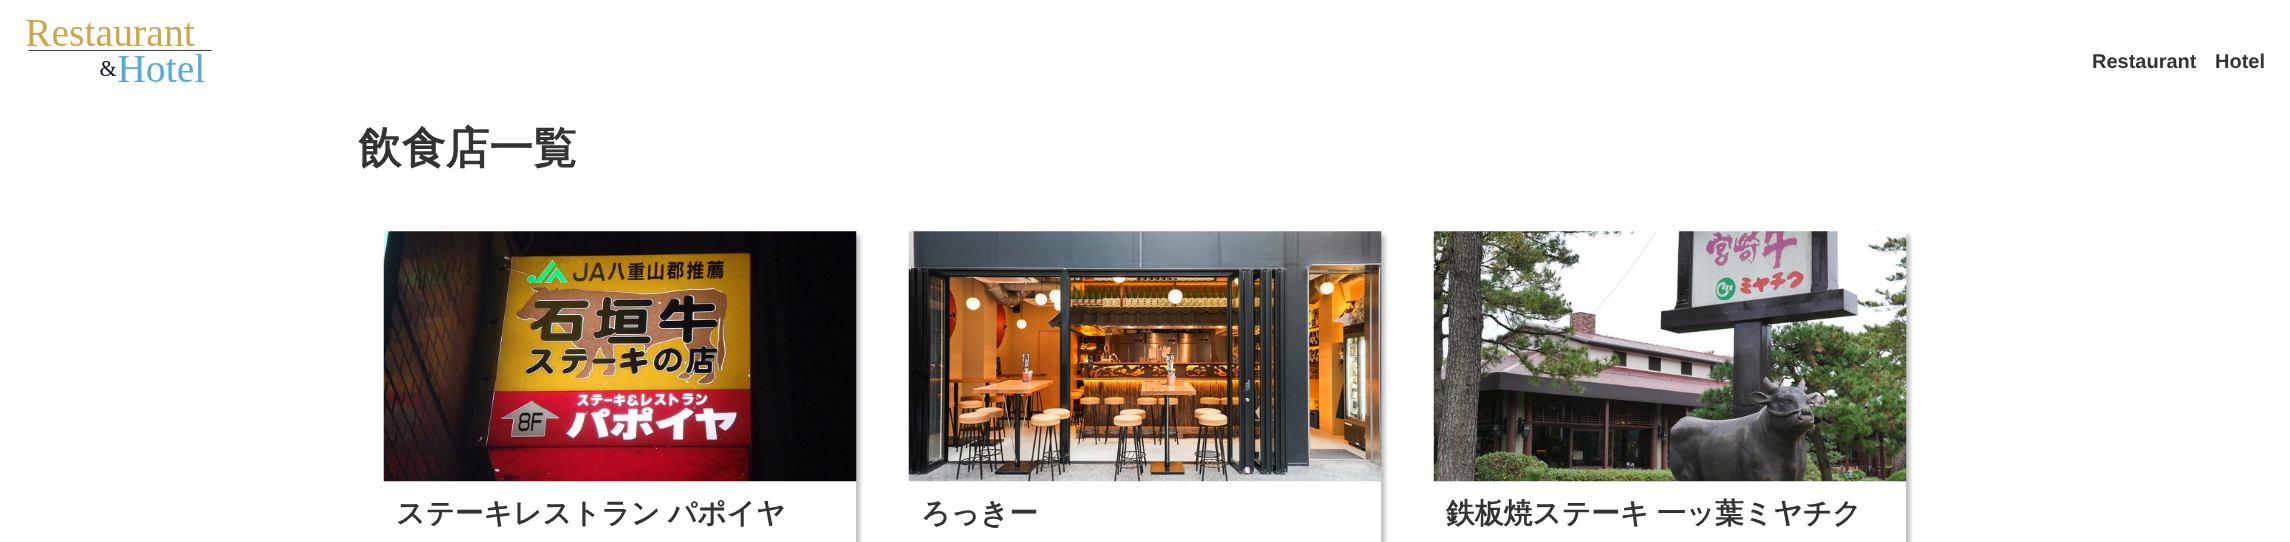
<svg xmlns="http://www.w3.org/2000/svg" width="2290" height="542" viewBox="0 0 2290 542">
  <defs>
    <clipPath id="clip1"><path d="M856 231h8v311H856z"/></clipPath>
    <clipPath id="clip2"><path d="M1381 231h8v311H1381z"/></clipPath>
    <clipPath id="clip3"><path d="M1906 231h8v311H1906z"/></clipPath>
  </defs>
  <rect width="100%" height="100%" fill="#fff"/>
  <image x="26" y="20" width="186" height="62" href="img/1.png"/>
  <g clip-path="url(#clip1)">
    <path d="M388 235h472v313H388z" fill="#bfbfbf" filter="blur(2px)"/>
  </g>
  <image x="383" y="231" width="474" height="251" href="img/2.png"/>
  <g clip-path="url(#clip2)">
    <path d="M913 235h472v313H913z" fill="#bfbfbf" filter="blur(2px)"/>
  </g>
  <image x="908" y="231" width="474" height="251" href="img/3.png"/>
  <g clip-path="url(#clip3)">
    <path d="M1438 235h472v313H1438z" fill="#bfbfbf" filter="blur(2px)"/>
  </g>
  <image x="1433" y="231" width="474" height="251" href="img/4.png"/>
  <g font-family="Liberation Sans" font-size="20" font-weight="bold" fill="#333">
    <text x="2092" y="68">Restaurant</text>
    <text x="2215" y="68">Hotel</text>
  </g>
  <text x="358" y="163" font-family="WenQuanYi Zen Hei" font-size="43.75" font-weight="bold" fill="#333">飲食店一覧</text>
  <g font-family="WenQuanYi Zen Hei" font-size="28.75" font-weight="bold" fill="#333">
    <text x="396" y="523" word-spacing="-1">ステーキレストラン パポイヤ</text>
    <text x="921" y="523">ろっきー</text>
    <text x="1446" y="523" word-spacing="-1">鉄板焼ステーキ 一ッ葉ミヤチク</text>
  </g>
</svg>
